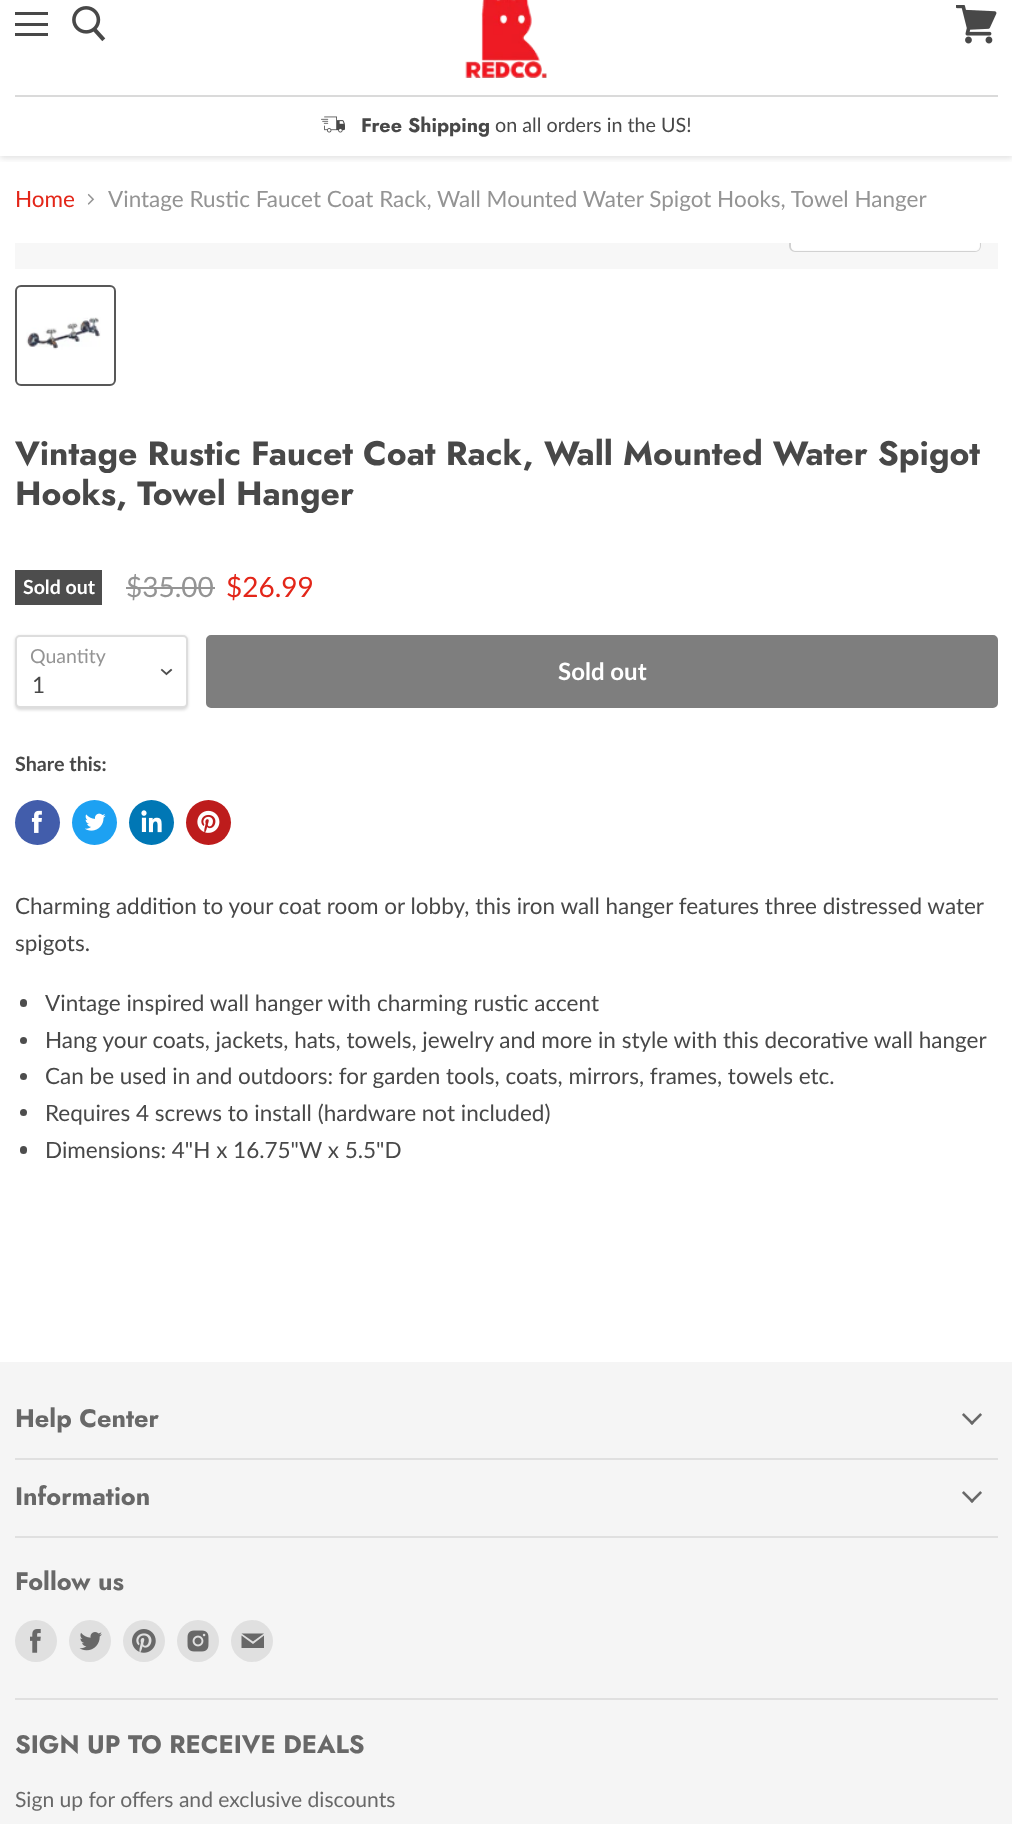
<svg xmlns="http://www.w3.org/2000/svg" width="1012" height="1824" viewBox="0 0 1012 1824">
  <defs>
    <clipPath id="clip1"><path d="M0 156h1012v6H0z"/></clipPath>
    <clipPath id="clip2"><path d="M15 243h983v26H15z"/></clipPath>
  </defs>
  <rect width="100%" height="100%" fill="#fff"/>
  <g clip-path="url(#clip1)">
    <path d="M0 -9h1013v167H0z" fill="#7f7f7f40" filter="blur(3px)"/>
  </g>
  <path d="M15 12h33v3H15z" fill="#484848"/>
  <path d="M15 23h33v3H15z" fill="#484848"/>
  <path d="M15 33h33v3H15z" fill="#484848"/>
  <image x="72" y="6" width="34" height="36" href="img/1.png"/>
  <image x="956" y="5" width="41" height="39" href="img/2.png"/>
  <image x="465" y="0" width="82" height="78" href="img/3.png"/>
  <path d="M15 95h983v2H15z" fill="#dadada"/>
  <image x="321" y="116" width="24" height="17" href="img/4.png"/>
  <image x="87" y="193" width="8" height="12" href="img/5.png"/>
  <path d="M15 243h983v26H15z" fill="#f7f7f7"/>
  <rect x="16" y="286" width="99" height="99" rx="5" fill="none" stroke="#585858" stroke-width="2"/>
  <image x="26" y="317" width="75" height="33" href="img/6.png"/>
  <path d="M15 570h87v35H15z" fill="#4d4d4d"/>
  <path d="M126 587h89v2H126z" fill="#949494"/>
  <rect x="15" y="636" width="173" height="74" rx="5" fill="#00000026" filter="blur(1.5px)"/>
  <rect x="16" y="636" width="171" height="71" rx="4" fill="#fff" stroke="#ddd" stroke-width="2"/>
  <path d="M166.5 674L171 670M166.5 674L162 670" fill="none" stroke="#4d4d4d" stroke-width="1.9" stroke-linecap="square"/>
  <rect x="207" y="636" width="790" height="71" rx="4" fill="#7e7e7e" stroke="#7e7e7e" stroke-width="2"/>
  <circle cx="37.5" cy="822.5" r="22.5" fill="#425dab"/>
  <image x="31" y="810" width="11" height="23" href="img/7.png"/>
  <circle cx="94.5" cy="822.5" r="22.5" fill="#1da1f2"/>
  <image x="85" y="813" width="21" height="18" href="img/8.png"/>
  <circle cx="151.5" cy="822.5" r="22.5" fill="#0077b5"/>
  <image x="141" y="810" width="21" height="23" href="img/9.png"/>
  <circle cx="208.5" cy="822.5" r="22.5" fill="#bd1c1c"/>
  <image x="197" y="810" width="23" height="23" href="img/10.png"/>
  <rect x="20" y="999" width="7" height="8" rx="3.5" fill="#4d4d4d"/>
  <circle cx="23.5" cy="1040.5" r="3.5" fill="#4d4d4d"/>
  <circle cx="23.5" cy="1076.5" r="3.5" fill="#4d4d4d"/>
  <circle cx="23.5" cy="1112.5" r="3.5" fill="#4d4d4d"/>
  <rect x="20" y="1146" width="7" height="8" rx="3.5" fill="#4d4d4d"/>
  <path d="M0 1362h1012v462H0z" fill="#f5f5f5"/>
  <path d="M15 1458h983v2H15z" fill="#e0e0e0"/>
  <image x="962" y="1413" width="20" height="12" href="img/11.png"/>
  <path d="M15 1536h983v2H15z" fill="#e0e0e0"/>
  <image x="962" y="1491" width="20" height="12" href="img/11.png"/>
  <path d="M15 1698h983v2H15z" fill="#e0e0e0"/>
  <circle cx="36" cy="1641" r="21" fill="#e0e0e0"/>
  <image x="30" y="1629" width="11" height="24" href="img/12.png"/>
  <circle cx="90" cy="1641" r="21" fill="#e0e0e0"/>
  <image x="79" y="1632" width="23" height="19" href="img/13.png"/>
  <circle cx="144" cy="1641" r="21" fill="#e0e0e0"/>
  <image x="132" y="1629" width="24" height="24" href="img/14.png"/>
  <circle cx="198" cy="1641" r="21" fill="#e0e0e0"/>
  <image x="187" y="1630" width="22" height="22" href="img/15.png"/>
  <circle cx="252" cy="1641" r="21" fill="#e0e0e0"/>
  <path d="M264 1633.5H241.5L253 1641.5ZM253 1644L241.5 1635.5V1648H264V1635.5Z" fill="#686868" fill-rule="evenodd"/>
  <text x="361" y="132" font-family="Jost" font-size="19.75" font-weight="bold" fill="#484848">Free Shipping</text>
  <text x="495" y="132" font-family="Lato" font-size="19.75" fill="#484848">on all orders in the US!</text>
  <text x="15" y="207" font-family="Lato" font-size="22.5" fill="#e32619">Home</text>
  <text x="108" y="207" font-family="Lato" font-size="22.5" fill="#949494">Vintage Rustic Faucet Coat Rack, Wall Mounted Water Spigot Hooks, Towel Hanger</text>
  <g clip-path="url(#clip2)">
    <rect x="790" y="210" width="190" height="41" rx="5" fill="none" stroke="#d2d2d2" stroke-width="2"/>
  </g>
  <path d="M791 243H980V246C980 249 978 251 975 251H796C793 251 791 249 791 246Z" fill="#ffffffe6"/>
  <g font-family="Jost" font-size="33.75" font-weight="bold" fill="#484848">
    <text x="15" y="465">Vintage Rustic Faucet Coat Rack, Wall Mounted Water Spigot</text>
    <text x="15" y="505">Hooks, Towel Hanger</text>
  </g>
  <text x="23" y="594" font-family="Lato" font-size="19.5" font-weight="bold" fill="#fff">Sold out</text>
  <text x="126" y="597" font-family="Lato" font-size="28" fill="#949494">$35.00</text>
  <text x="226" y="597" font-family="Lato" font-size="28" fill="#e32619">$26.99</text>
  <text x="30" y="663" font-family="Lato" font-size="19.5" fill="#949494">Quantity</text>
  <text x="32" y="693" font-family="Lato" font-size="22.5" fill="#484848">1</text>
  <text x="558" y="680" font-family="Lato" font-size="24" font-weight="bold" fill="#fff">Sold out</text>
  <text x="15" y="771" font-family="Lato" font-size="19.75" font-weight="bold" fill="#484848">Share this:</text>
  <g font-family="Lato" font-size="22.5" fill="#484848">
    <text x="15" y="914">Charming addition to your coat room or lobby, this iron wall hanger features three distressed water</text>
    <text x="15" y="951">spigots.</text>
    <text x="45" y="1011">Vintage inspired wall hanger with charming rustic accent</text>
    <text x="45" y="1048">Hang your coats, jackets, hats, towels, jewelry and more in style with this decorative wall hanger</text>
    <text x="45" y="1084">Can be used in and outdoors: for garden tools, coats, mirrors, frames, towels etc.</text>
    <text x="45" y="1121">Requires 4 screws to install (hardware not included)</text>
    <text x="45" y="1158">Dimensions: 4"H x 16.75"W x 5.5"D</text>
  </g>
  <g font-family="Jost" font-size="25.25" font-weight="bold" fill="#686868">
    <text x="15" y="1427">Help Center</text>
    <text x="15" y="1505">Information</text>
    <text x="15" y="1590">Follow us</text>
    <text x="15" y="1753">SIGN UP TO RECEIVE DEALS</text>
  </g>
  <text x="15" y="1807" font-family="Lato" font-size="21.1" fill="#686868">Sign up for offers and exclusive discounts</text>
</svg>
